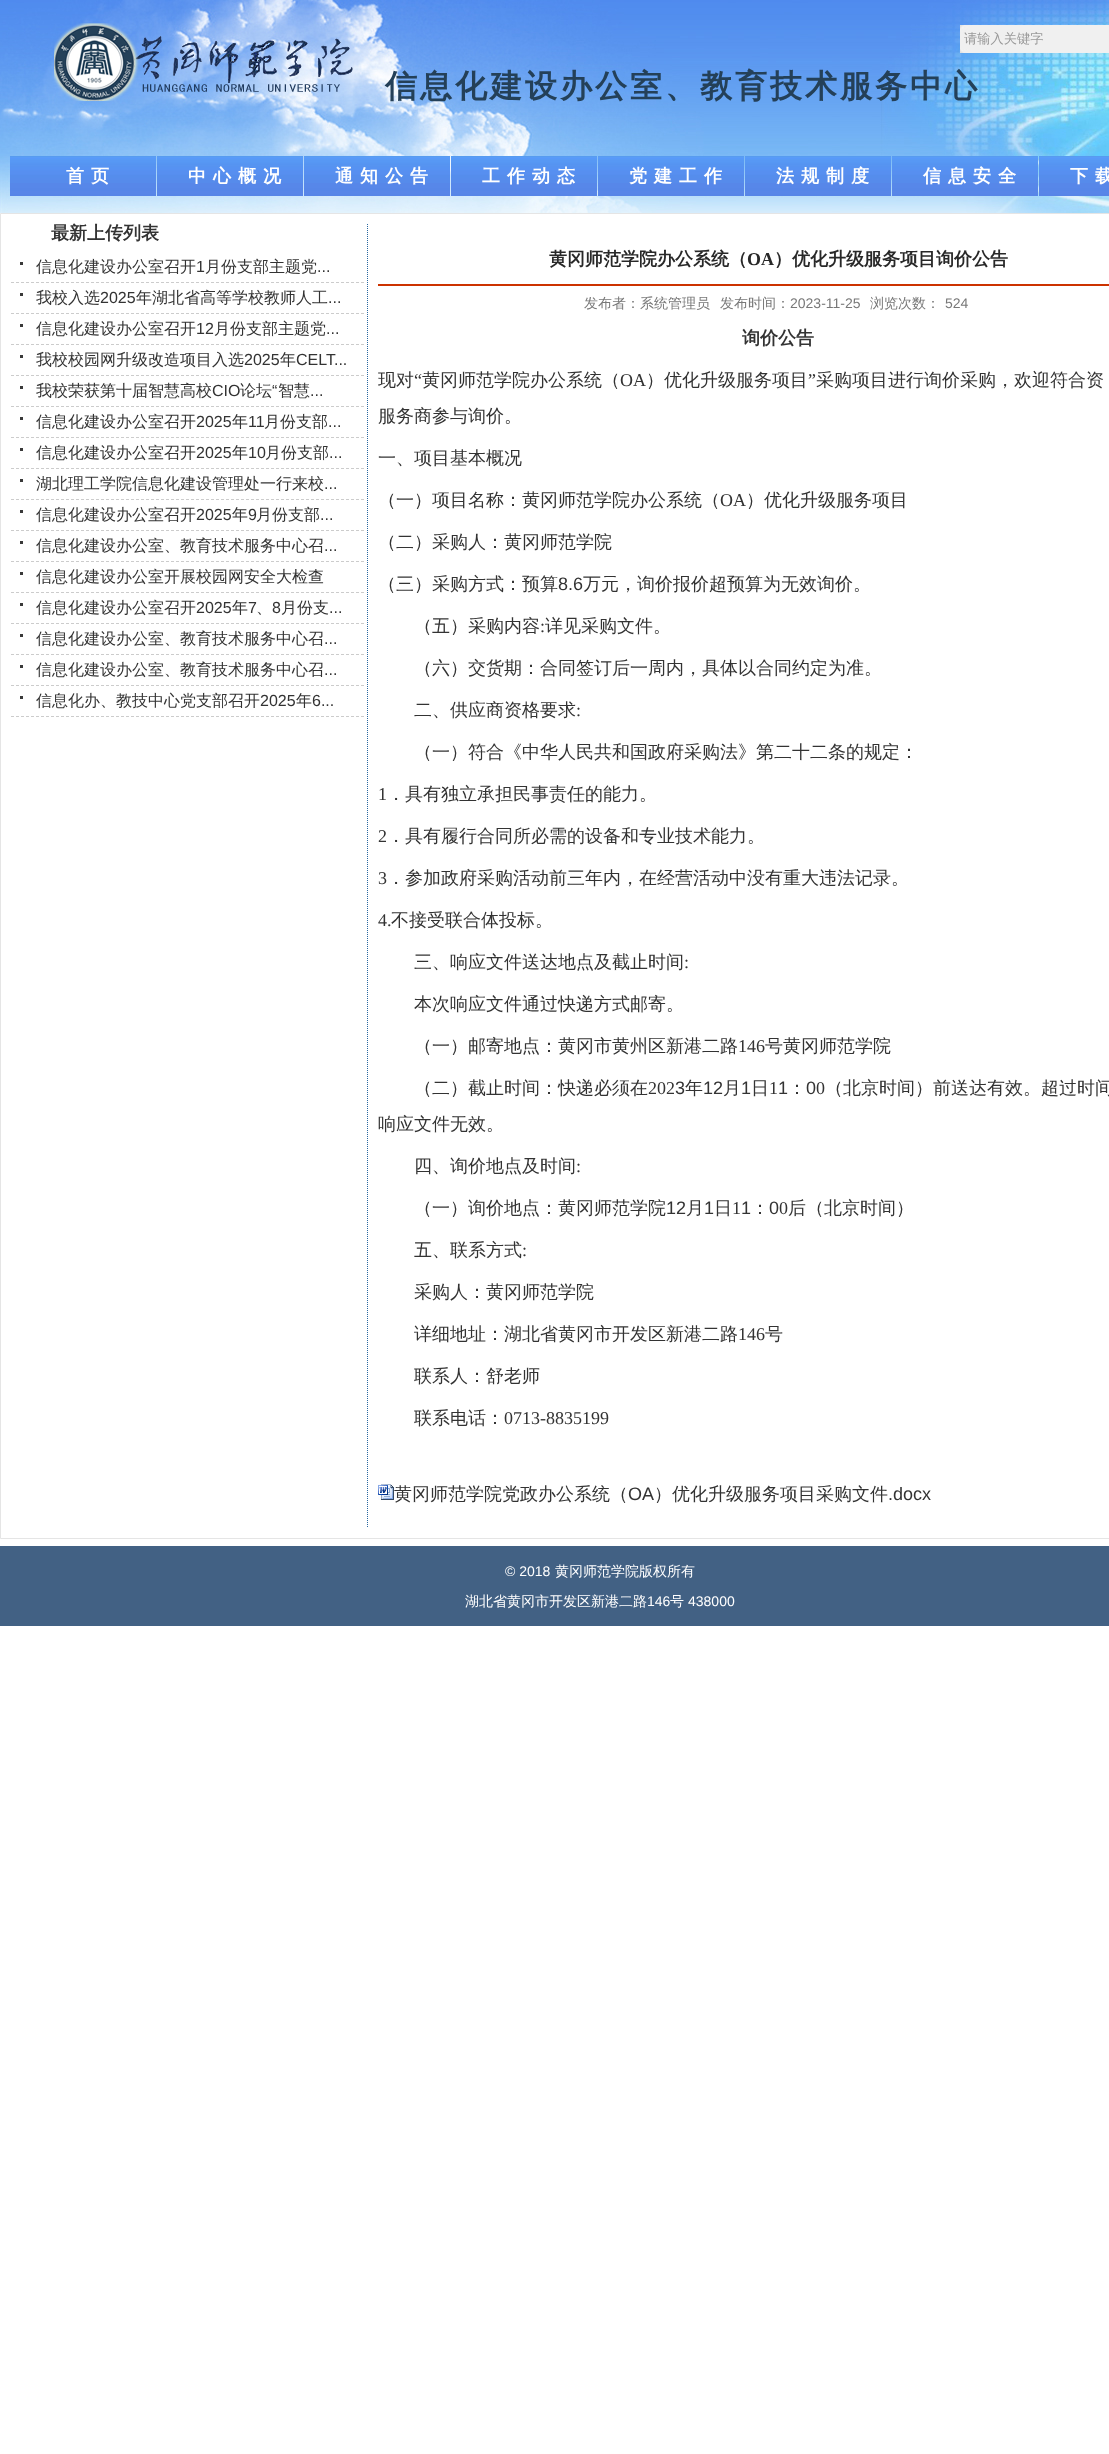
<svg xmlns="http://www.w3.org/2000/svg" width="1109" height="2454" viewBox="0 0 1109 2454">
  <rect width="100%" height="100%" fill="#fff"/>
  <image x="0" y="0" width="1109" height="213" href="img/1.png"/>
  <image x="54" y="23" width="299" height="78" href="img/2.png"/>
  <image x="960" y="25" width="149" height="28" href="img/3.png"/>
  <image x="10" y="156" width="146" height="40" href="img/4.png"/>
  <image x="157" y="156" width="146" height="40" href="img/4.png"/>
  <image x="304" y="156" width="146" height="40" href="img/4.png"/>
  <image x="451" y="156" width="146" height="40" href="img/4.png"/>
  <image x="598" y="156" width="146" height="40" href="img/4.png"/>
  <image x="745" y="156" width="146" height="40" href="img/4.png"/>
  <image x="892" y="156" width="146" height="40" href="img/4.png"/>
  <image x="1039" y="156" width="70" height="40" href="img/5.png"/>
  <path d="M0.5 213.5h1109v1325H0.5z" fill="none" stroke="#e5e5e5"/>
  <path d="M11 282.5H364" fill="none" stroke="#ccc" stroke-dasharray="3 2"/>
  <path d="M20 262h3v3H20z" fill="#393939"/>
  <path d="M11 313.5H364" fill="none" stroke="#ccc" stroke-dasharray="3 2"/>
  <path d="M20 293h3v3H20z" fill="#393939"/>
  <path d="M11 344.5H364" fill="none" stroke="#ccc" stroke-dasharray="3 2"/>
  <path d="M20 324h3v3H20z" fill="#393939"/>
  <path d="M11 375.5H364" fill="none" stroke="#ccc" stroke-dasharray="3 2"/>
  <path d="M20 355h3v3H20z" fill="#393939"/>
  <path d="M11 406.5H364" fill="none" stroke="#ccc" stroke-dasharray="3 2"/>
  <path d="M20 386h3v3H20z" fill="#393939"/>
  <path d="M11 437.5H364" fill="none" stroke="#ccc" stroke-dasharray="3 2"/>
  <path d="M20 417h3v3H20z" fill="#393939"/>
  <path d="M11 468.5H364" fill="none" stroke="#ccc" stroke-dasharray="3 2"/>
  <path d="M20 448h3v3H20z" fill="#393939"/>
  <path d="M11 499.5H364" fill="none" stroke="#ccc" stroke-dasharray="3 2"/>
  <path d="M20 479h3v3H20z" fill="#393939"/>
  <path d="M11 530.5H364" fill="none" stroke="#ccc" stroke-dasharray="3 2"/>
  <path d="M20 510h3v3H20z" fill="#393939"/>
  <path d="M11 561.5H364" fill="none" stroke="#ccc" stroke-dasharray="3 2"/>
  <path d="M20 541h3v3H20z" fill="#393939"/>
  <path d="M11 592.5H364" fill="none" stroke="#ccc" stroke-dasharray="3 2"/>
  <path d="M20 572h3v3H20z" fill="#393939"/>
  <path d="M11 623.5H364" fill="none" stroke="#ccc" stroke-dasharray="3 2"/>
  <path d="M20 603h3v3H20z" fill="#393939"/>
  <path d="M11 654.5H364" fill="none" stroke="#ccc" stroke-dasharray="3 2"/>
  <path d="M20 634h3v3H20z" fill="#393939"/>
  <path d="M11 685.5H364" fill="none" stroke="#ccc" stroke-dasharray="3 2"/>
  <path d="M20 665h3v3H20z" fill="#393939"/>
  <path d="M11 716.5H364" fill="none" stroke="#ccc" stroke-dasharray="3 2"/>
  <path d="M20 696h3v3H20z" fill="#393939"/>
  <path d="M367.5 224V1528" fill="none" stroke="#2867a0" stroke-dasharray="1 1"/>
  <path d="M378 284h731v2H378z" fill="#c30"/>
  <image x="378" y="1484" width="16" height="16" href="img/6.png"/>
  <path d="M0 1546h1109v80H0z" fill="#426184"/>
  <text x="964" y="43" font-family="WenQuanYi Zen Hei" font-size="13.25" font-weight="500" fill="#999">请输入关键字</text>
  <text x="385" y="97" font-family="WenQuanYi Zen Hei" font-size="32" font-weight="bold" letter-spacing="3" fill="#244058">信息化建设办公室、教育技术服务中心</text>
  <g font-family="WenQuanYi Zen Hei" font-size="18" font-weight="bold" letter-spacing="7" fill="#fff">
    <text x="66" y="182">首页</text>
    <text x="188" y="182">中心概况</text>
    <text x="335" y="182">通知公告</text>
    <text x="482" y="182">工作动态</text>
    <text x="629" y="182">党建工作</text>
    <text x="776" y="182">法规制度</text>
    <text x="923" y="182">信息安全</text>
    <text x="1070" y="182">下载</text>
  </g>
  <text x="51" y="239" font-family="WenQuanYi Zen Hei" font-size="18" font-weight="bold" fill="#333">最新上传列表</text>
  <text x="36" y="272" font-family="WenQuanYi Zen Hei" font-size="16" font-weight="500" fill="#333">信息化建设办公室召开</text>
  <text x="196" y="272" font-family="Liberation Sans" font-size="16" fill="#333">1</text>
  <text x="205" y="272" font-family="WenQuanYi Zen Hei" font-size="16" font-weight="500" fill="#333">月份支部主题党</text>
  <text x="317" y="272" font-family="Liberation Sans" font-size="16" fill="#333">...</text>
  <text x="36" y="303" font-family="WenQuanYi Zen Hei" font-size="16" font-weight="500" fill="#333">我校入选</text>
  <text x="100" y="303" font-family="Liberation Sans" font-size="16" fill="#333">2025</text>
  <text x="136" y="303" font-family="WenQuanYi Zen Hei" font-size="16" font-weight="500" fill="#333">年湖北省高等学校教师人工</text>
  <text x="328" y="303" font-family="Liberation Sans" font-size="16" fill="#333">...</text>
  <text x="36" y="334" font-family="WenQuanYi Zen Hei" font-size="16" font-weight="500" fill="#333">信息化建设办公室召开</text>
  <text x="196" y="334" font-family="Liberation Sans" font-size="16" fill="#333">12</text>
  <text x="214" y="334" font-family="WenQuanYi Zen Hei" font-size="16" font-weight="500" fill="#333">月份支部主题党</text>
  <text x="326" y="334" font-family="Liberation Sans" font-size="16" fill="#333">...</text>
  <text x="36" y="365" font-family="WenQuanYi Zen Hei" font-size="16" font-weight="500" fill="#333">我校校园网升级改造项目入选</text>
  <text x="244" y="365" font-family="Liberation Sans" font-size="16" fill="#333">2025</text>
  <text x="280" y="365" font-family="WenQuanYi Zen Hei" font-size="16" font-weight="500" fill="#333">年</text>
  <text x="296" y="365" font-family="Liberation Sans" font-size="16" fill="#333">CELT...</text>
  <text x="36" y="396" font-family="WenQuanYi Zen Hei" font-size="16" font-weight="500" fill="#333">我校荣获第十届智慧高校</text>
  <text x="212" y="396" font-family="Liberation Sans" font-size="16" fill="#333">CIO</text>
  <text x="240" y="396" font-family="WenQuanYi Zen Hei" font-size="16" font-weight="500" fill="#333">论坛</text>
  <text x="272" y="396" font-family="Liberation Sans" font-size="16" fill="#333">“</text>
  <text x="278" y="396" font-family="WenQuanYi Zen Hei" font-size="16" font-weight="500" fill="#333">智慧</text>
  <text x="310" y="396" font-family="Liberation Sans" font-size="16" fill="#333">...</text>
  <text x="36" y="427" font-family="WenQuanYi Zen Hei" font-size="16" font-weight="500" fill="#333">信息化建设办公室召开</text>
  <text x="196" y="427" font-family="Liberation Sans" font-size="16" fill="#333">2025</text>
  <text x="232" y="427" font-family="WenQuanYi Zen Hei" font-size="16" font-weight="500" fill="#333">年</text>
  <text x="248" y="427" font-family="Liberation Sans" font-size="16" fill="#333">11</text>
  <text x="264" y="427" font-family="WenQuanYi Zen Hei" font-size="16" font-weight="500" fill="#333">月份支部</text>
  <text x="328" y="427" font-family="Liberation Sans" font-size="16" fill="#333">...</text>
  <text x="36" y="458" font-family="WenQuanYi Zen Hei" font-size="16" font-weight="500" fill="#333">信息化建设办公室召开</text>
  <text x="196" y="458" font-family="Liberation Sans" font-size="16" fill="#333">2025</text>
  <text x="232" y="458" font-family="WenQuanYi Zen Hei" font-size="16" font-weight="500" fill="#333">年</text>
  <text x="248" y="458" font-family="Liberation Sans" font-size="16" fill="#333">10</text>
  <text x="265" y="458" font-family="WenQuanYi Zen Hei" font-size="16" font-weight="500" fill="#333">月份支部</text>
  <text x="329" y="458" font-family="Liberation Sans" font-size="16" fill="#333">...</text>
  <text x="36" y="489" font-family="WenQuanYi Zen Hei" font-size="16" font-weight="500" fill="#333">湖北理工学院信息化建设管理处一行来校</text>
  <text x="324" y="489" font-family="Liberation Sans" font-size="16" fill="#333">...</text>
  <text x="36" y="520" font-family="WenQuanYi Zen Hei" font-size="16" font-weight="500" fill="#333">信息化建设办公室召开</text>
  <text x="196" y="520" font-family="Liberation Sans" font-size="16" fill="#333">2025</text>
  <text x="232" y="520" font-family="WenQuanYi Zen Hei" font-size="16" font-weight="500" fill="#333">年</text>
  <text x="248" y="520" font-family="Liberation Sans" font-size="16" fill="#333">9</text>
  <text x="256" y="520" font-family="WenQuanYi Zen Hei" font-size="16" font-weight="500" fill="#333">月份支部</text>
  <text x="320" y="520" font-family="Liberation Sans" font-size="16" fill="#333">...</text>
  <text x="36" y="551" font-family="WenQuanYi Zen Hei" font-size="16" font-weight="500" fill="#333">信息化建设办公室、教育技术服务中心召</text>
  <text x="324" y="551" font-family="Liberation Sans" font-size="16" fill="#333">...</text>
  <g font-family="WenQuanYi Zen Hei" font-size="16" font-weight="500" fill="#333">
    <text x="36" y="582">信息化建设办公室开展校园网安全大检查</text>
    <text x="36" y="613">信息化建设办公室召开</text>
  </g>
  <text x="196" y="613" font-family="Liberation Sans" font-size="16" fill="#333">2025</text>
  <text x="232" y="613" font-family="WenQuanYi Zen Hei" font-size="16" font-weight="500" fill="#333">年</text>
  <text x="248" y="613" font-family="Liberation Sans" font-size="16" fill="#333">7</text>
  <text x="256" y="613" font-family="WenQuanYi Zen Hei" font-size="16" font-weight="500" fill="#333">、</text>
  <text x="272" y="613" font-family="Liberation Sans" font-size="16" fill="#333">8</text>
  <text x="281" y="613" font-family="WenQuanYi Zen Hei" font-size="16" font-weight="500" fill="#333">月份支</text>
  <text x="329" y="613" font-family="Liberation Sans" font-size="16" fill="#333">...</text>
  <text x="36" y="644" font-family="WenQuanYi Zen Hei" font-size="16" font-weight="500" fill="#333">信息化建设办公室、教育技术服务中心召</text>
  <text x="324" y="644" font-family="Liberation Sans" font-size="16" fill="#333">...</text>
  <text x="36" y="675" font-family="WenQuanYi Zen Hei" font-size="16" font-weight="500" fill="#333">信息化建设办公室、教育技术服务中心召</text>
  <text x="324" y="675" font-family="Liberation Sans" font-size="16" fill="#333">...</text>
  <text x="36" y="706" font-family="WenQuanYi Zen Hei" font-size="16" font-weight="500" fill="#333">信息化办、教技中心党支部召开</text>
  <text x="260" y="706" font-family="Liberation Sans" font-size="16" fill="#333">2025</text>
  <text x="296" y="706" font-family="WenQuanYi Zen Hei" font-size="16" font-weight="500" fill="#333">年</text>
  <text x="312" y="706" font-family="Liberation Sans" font-size="16" fill="#333">6...</text>
  <text x="549" y="265" font-family="WenQuanYi Zen Hei" font-size="18" font-weight="bold" fill="#282828">黄冈师范学院办公系统（</text>
  <text x="747" y="265" font-family="Liberation Serif" font-size="18" font-weight="bold" fill="#282828">OA</text>
  <text x="774" y="265" font-family="WenQuanYi Zen Hei" font-size="18" font-weight="bold" fill="#282828">）优化升级服务项目询价公告</text>
  <g font-family="WenQuanYi Zen Hei" font-size="14" font-weight="500" fill="#787878">
    <text x="584" y="308">发布者：系统管理员</text>
    <text x="720" y="308">发布时间：</text>
  </g>
  <text x="790" y="308" font-family="Liberation Sans" font-size="14" fill="#787878">2023-11-25</text>
  <text x="870" y="308" font-family="WenQuanYi Zen Hei" font-size="14" font-weight="500" fill="#787878">浏览次数：</text>
  <text x="945" y="308" font-family="Liberation Sans" font-size="14" fill="#787878">524</text>
  <text x="742" y="344" font-family="WenQuanYi Zen Hei" font-size="18" font-weight="bold" fill="#333">询价公告</text>
  <text x="378" y="386" font-family="WenQuanYi Zen Hei" font-size="18" font-weight="500" fill="#333">现对</text>
  <text x="414" y="386" font-family="Liberation Serif" font-size="18" fill="#333">“</text>
  <text x="422" y="386" font-family="WenQuanYi Zen Hei" font-size="18" font-weight="500" fill="#333">黄冈师范学院办公系统（</text>
  <text x="620" y="386" font-family="Liberation Serif" font-size="18" fill="#333">OA</text>
  <text x="646" y="386" font-family="WenQuanYi Zen Hei" font-size="18" font-weight="500" fill="#333">）优化升级服务项目</text>
  <text x="808" y="386" font-family="Liberation Serif" font-size="18" fill="#333">”</text>
  <g font-family="WenQuanYi Zen Hei" font-size="18" font-weight="500" fill="#333">
    <text x="816" y="386">采购项目进行询价采购，欢迎符合资</text>
    <text x="378" y="422">服务商参与询价。</text>
    <text x="378" y="464">一、项目基本概况</text>
    <text x="378" y="506">（一）项目名称：黄冈师范学院办公系统（</text>
  </g>
  <text x="720" y="506" font-family="Liberation Serif" font-size="18" fill="#333">OA</text>
  <g font-family="WenQuanYi Zen Hei" font-size="18" font-weight="500" fill="#333">
    <text x="746" y="506">）优化升级服务项目</text>
    <text x="378" y="548">（二）采购人：黄冈师范学院</text>
    <text x="378" y="590">（三）采购方式：预算</text>
  </g>
  <text x="558" y="590" font-family="Liberation Sans" font-size="18" fill="#333">8.6</text>
  <g font-family="WenQuanYi Zen Hei" font-size="18" font-weight="500" fill="#333">
    <text x="583" y="590">万元，询价报价超预算为无效询价。</text>
    <text x="414" y="632">（五）采购内容</text>
  </g>
  <text x="540" y="632" font-family="Liberation Serif" font-size="18" fill="#333">:</text>
  <g font-family="WenQuanYi Zen Hei" font-size="18" font-weight="500" fill="#333">
    <text x="545" y="632">详见采购文件。</text>
    <text x="414" y="674">（六）交货期：合同签订后一周内，具体以合同约定为准。</text>
    <text x="414" y="716">二、供应商资格要求</text>
  </g>
  <text x="576" y="716" font-family="Liberation Serif" font-size="18" fill="#333">:</text>
  <text x="414" y="758" font-family="WenQuanYi Zen Hei" font-size="18" font-weight="500" fill="#333">（一）符合《中华人民共和国政府采购法》第二十二条的规定：</text>
  <text x="378" y="800" font-family="Liberation Serif" font-size="18" fill="#333">1</text>
  <text x="387" y="800" font-family="WenQuanYi Zen Hei" font-size="18" font-weight="500" fill="#333">．具有独立承担民事责任的能力。</text>
  <text x="378" y="842" font-family="Liberation Serif" font-size="18" fill="#333">2</text>
  <text x="387" y="842" font-family="WenQuanYi Zen Hei" font-size="18" font-weight="500" fill="#333">．具有履行合同所必需的设备和专业技术能力。</text>
  <text x="378" y="884" font-family="Liberation Serif" font-size="18" fill="#333">3</text>
  <text x="387" y="884" font-family="WenQuanYi Zen Hei" font-size="18" font-weight="500" fill="#333">．参加政府采购活动前三年内，在经营活动中没有重大违法记录。</text>
  <text x="378" y="926" font-family="Liberation Serif" font-size="18" fill="#333">4.</text>
  <g font-family="WenQuanYi Zen Hei" font-size="18" font-weight="500" fill="#333">
    <text x="391" y="926">不接受联合体投标。</text>
    <text x="414" y="968">三、响应文件送达地点及截止时间</text>
  </g>
  <text x="684" y="968" font-family="Liberation Serif" font-size="18" fill="#333">:</text>
  <g font-family="WenQuanYi Zen Hei" font-size="18" font-weight="500" fill="#333">
    <text x="414" y="1010">本次响应文件通过快递方式邮寄。</text>
    <text x="414" y="1052">（一）邮寄地点：黄冈市黄州区新港二路</text>
  </g>
  <text x="738" y="1052" font-family="Liberation Serif" font-size="18" fill="#333">146</text>
  <g font-family="WenQuanYi Zen Hei" font-size="18" font-weight="500" fill="#333">
    <text x="765" y="1052">号黄冈师范学院</text>
    <text x="414" y="1094">（二）截止时间：快递必须在</text>
  </g>
  <text x="648" y="1094" font-family="Liberation Serif" font-size="18" fill="#333">202</text>
  <text x="675" y="1094" font-family="Liberation Sans" font-size="18" fill="#333">3</text>
  <text x="685" y="1094" font-family="WenQuanYi Zen Hei" font-size="18" font-weight="500" fill="#333">年</text>
  <text x="703" y="1094" font-family="Liberation Sans" font-size="18" fill="#333">12</text>
  <text x="723" y="1094" font-family="WenQuanYi Zen Hei" font-size="18" font-weight="500" fill="#333">月</text>
  <text x="741" y="1094" font-family="Liberation Sans" font-size="18" fill="#333">1</text>
  <text x="751" y="1094" font-family="WenQuanYi Zen Hei" font-size="18" font-weight="500" fill="#333">日</text>
  <text x="769" y="1094" font-family="Liberation Serif" font-size="18" fill="#333">1</text>
  <text x="778" y="1094" font-family="Liberation Sans" font-size="18" fill="#333">1</text>
  <text x="788" y="1094" font-family="WenQuanYi Zen Hei" font-size="18" font-weight="500" fill="#333">：</text>
  <text x="806" y="1094" font-family="Liberation Sans" font-size="18" fill="#333">0</text>
  <text x="816" y="1094" font-family="Liberation Serif" font-size="18" fill="#333">0</text>
  <g font-family="WenQuanYi Zen Hei" font-size="18" font-weight="500" fill="#333">
    <text x="825" y="1094">（北京时间）前送达有效。超过时间</text>
    <text x="378" y="1130">响应文件无效。</text>
    <text x="414" y="1172">四、询价地点及时间</text>
  </g>
  <text x="576" y="1172" font-family="Liberation Serif" font-size="18" fill="#333">:</text>
  <text x="414" y="1214" font-family="WenQuanYi Zen Hei" font-size="18" font-weight="500" fill="#333">（一）询价地点：黄冈师范学院</text>
  <text x="666" y="1214" font-family="Liberation Sans" font-size="18" fill="#333">12</text>
  <text x="686" y="1214" font-family="WenQuanYi Zen Hei" font-size="18" font-weight="500" fill="#333">月</text>
  <text x="704" y="1214" font-family="Liberation Sans" font-size="18" fill="#333">1</text>
  <text x="714" y="1214" font-family="WenQuanYi Zen Hei" font-size="18" font-weight="500" fill="#333">日</text>
  <text x="732" y="1214" font-family="Liberation Serif" font-size="18" fill="#333">1</text>
  <text x="741" y="1214" font-family="Liberation Sans" font-size="18" fill="#333">1</text>
  <text x="751" y="1214" font-family="WenQuanYi Zen Hei" font-size="18" font-weight="500" fill="#333">：</text>
  <text x="769" y="1214" font-family="Liberation Sans" font-size="18" fill="#333">0</text>
  <text x="779" y="1214" font-family="Liberation Serif" font-size="18" fill="#333">0</text>
  <g font-family="WenQuanYi Zen Hei" font-size="18" font-weight="500" fill="#333">
    <text x="788" y="1214">后（北京时间）</text>
    <text x="414" y="1256">五、联系方式</text>
  </g>
  <text x="522" y="1256" font-family="Liberation Serif" font-size="18" fill="#333">:</text>
  <g font-family="WenQuanYi Zen Hei" font-size="18" font-weight="500" fill="#333">
    <text x="414" y="1298">采购人：黄冈师范学院</text>
    <text x="414" y="1340">详细地址：湖北省黄冈市开发区新港二路</text>
  </g>
  <text x="738" y="1340" font-family="Liberation Serif" font-size="18" fill="#333">146</text>
  <g font-family="WenQuanYi Zen Hei" font-size="18" font-weight="500" fill="#333">
    <text x="765" y="1340">号</text>
    <text x="414" y="1382">联系人：舒老师</text>
    <text x="414" y="1424">联系电话：</text>
  </g>
  <text x="504" y="1424" font-family="Liberation Serif" font-size="18" fill="#333">0713-8835199</text>
  <text x="394" y="1500" font-family="WenQuanYi Zen Hei" font-size="18" font-weight="500" fill="#333">黄冈师范学院党政办公系统（</text>
  <text x="628" y="1500" font-family="Liberation Sans" font-size="18" fill="#333">OA</text>
  <text x="654" y="1500" font-family="WenQuanYi Zen Hei" font-size="18" font-weight="500" fill="#333">）优化升级服务项目采购文件</text>
  <text x="888" y="1500" font-family="Liberation Sans" font-size="18" fill="#333">.docx</text>
  <text x="505" y="1576" font-family="Liberation Sans" font-size="14" fill="#fff">© 2018</text>
  <g font-family="WenQuanYi Zen Hei" font-size="14" font-weight="500" fill="#fff">
    <text x="555" y="1576">黄冈师范学院版权所有</text>
    <text x="465" y="1606">湖北省黄冈市开发区新港二路</text>
  </g>
  <text x="647" y="1606" font-family="Liberation Sans" font-size="14" fill="#fff">146</text>
  <text x="670" y="1606" font-family="WenQuanYi Zen Hei" font-size="14" font-weight="500" fill="#fff">号</text>
  <text x="688" y="1606" font-family="Liberation Sans" font-size="14" fill="#fff">438000</text>
</svg>
